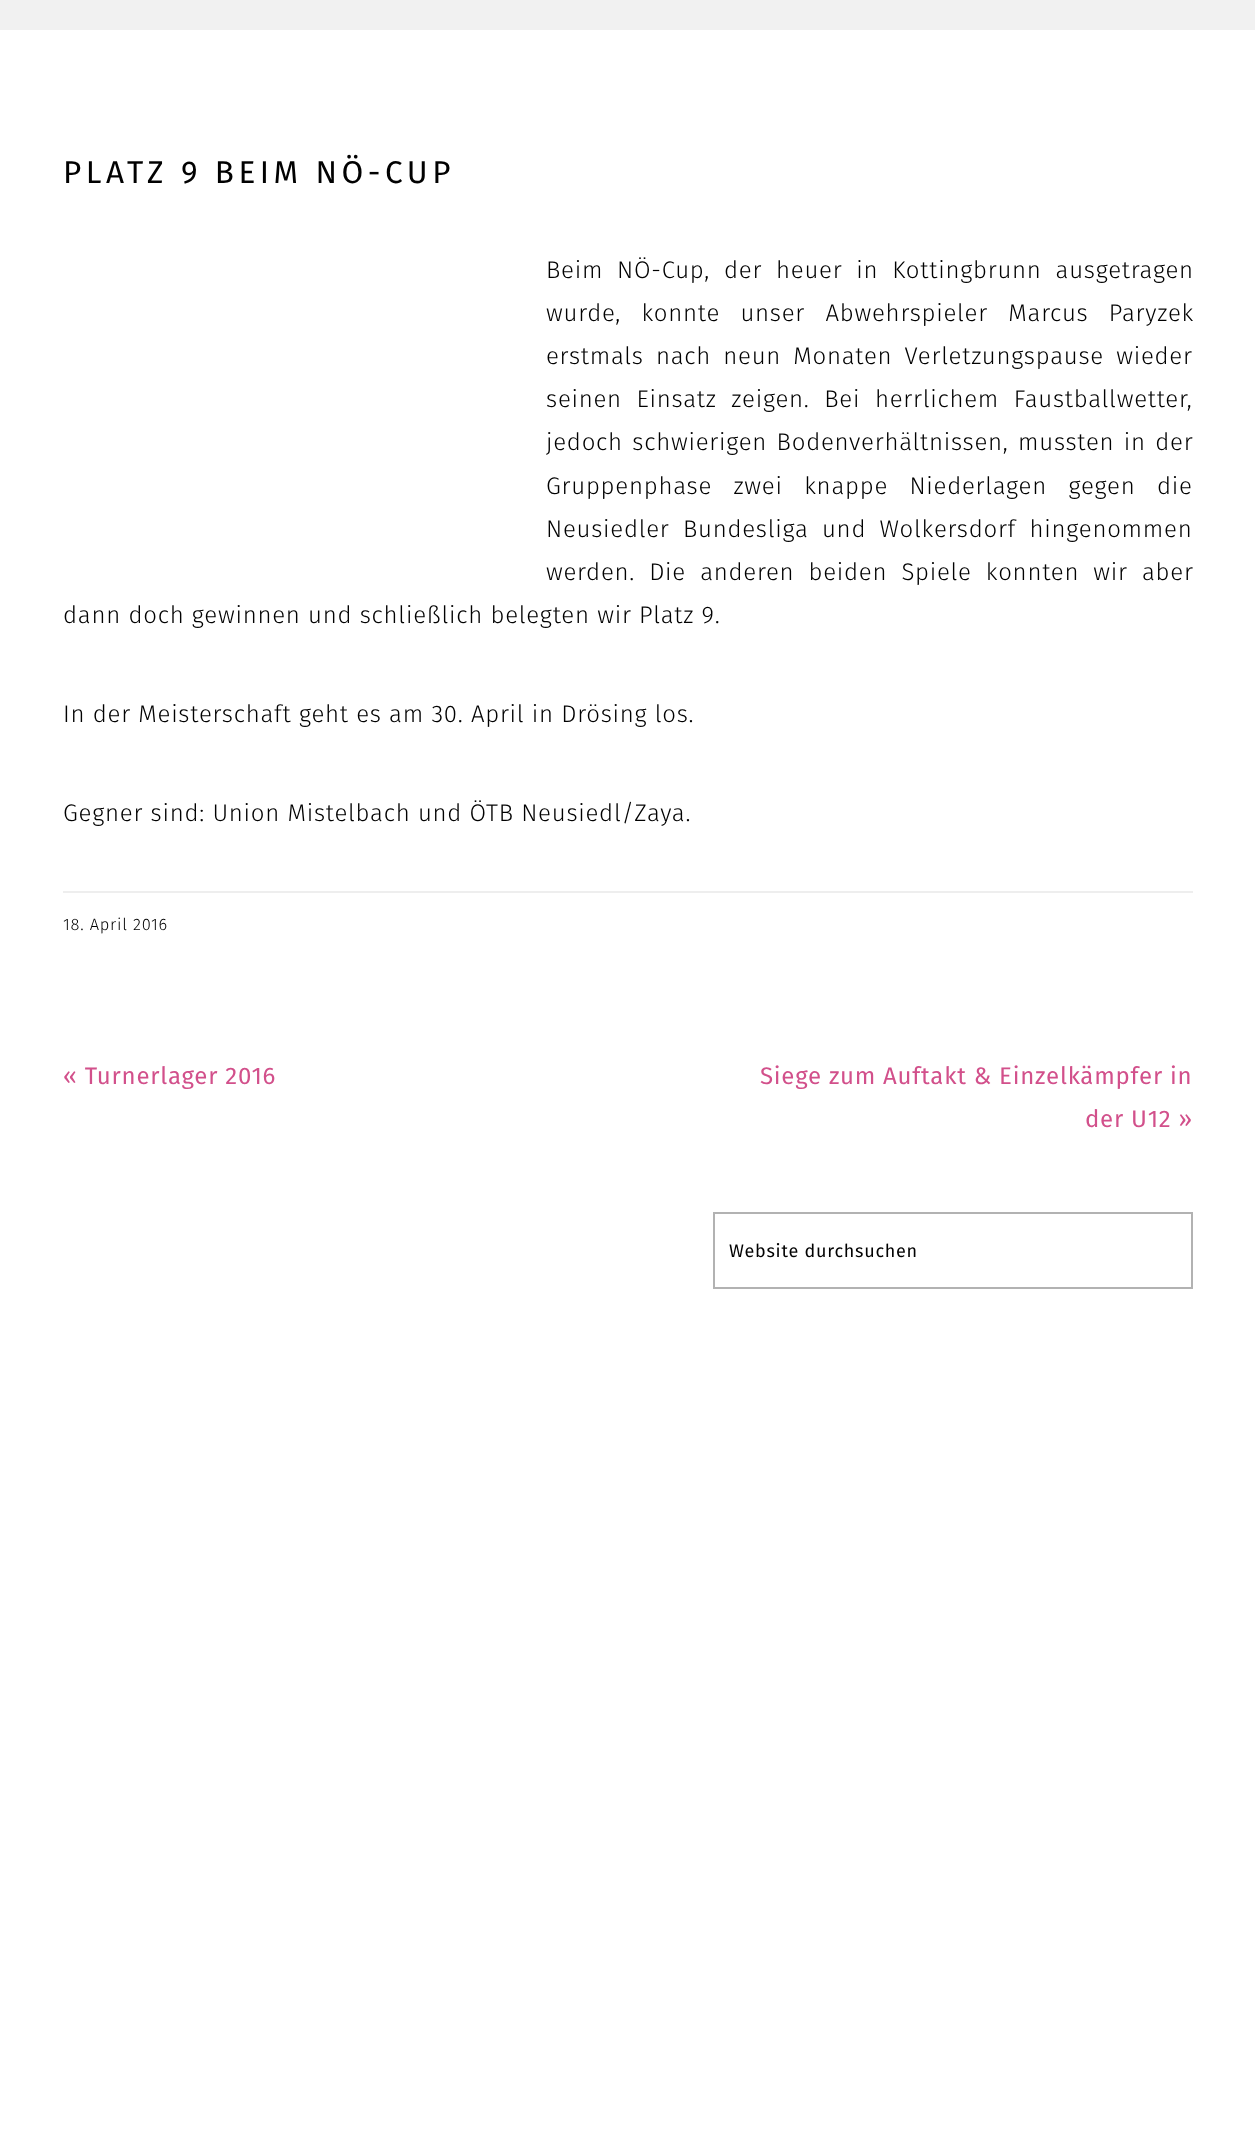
<svg xmlns="http://www.w3.org/2000/svg" width="1255" height="2146" viewBox="0 0 1255 2146">
  <rect width="100%" height="100%" fill="#fff"/>
  <path d="M0 0h1255v30H0z" fill="#f1f1f1"/>
  <path d="M63 891h1130v2H63z" fill="#eee"/>
  <path d="M714 1213h478v75H714z" fill="none" stroke="#b2b2b2" stroke-width="2"/>
  <text x="63" y="183" font-family="Fira Sans" font-size="31.5" letter-spacing="4.5" fill="#010101">PLATZ 9 BEIM NÖ-CUP</text>
  <g font-family="Fira Sans" font-size="24" font-weight="300" letter-spacing="0.75" fill="#010101">
    <text x="546" y="278" word-spacing="6.5">Beim NÖ-Cup, der heuer in Kottingbrunn ausgetragen</text>
    <text x="546" y="321" word-spacing="13">wurde, konnte unser Abwehrspieler Marcus Paryzek</text>
    <text x="546" y="364" word-spacing="4.75">erstmals nach neun Monaten Verletzungspause wieder</text>
    <text x="546" y="407" word-spacing="7.25">seinen Einsatz zeigen. Bei herrlichem Faustballwetter,</text>
    <text x="546" y="450" word-spacing="2">jedoch schwierigen Bodenverhältnissen, mussten in der</text>
    <text x="546" y="494" word-spacing="14">Gruppenphase zwei knappe Niederlagen gegen die</text>
    <text x="546" y="537" word-spacing="6">Neusiedler Bundesliga und Wolkersdorf hingenommen</text>
    <text x="546" y="580" word-spacing="6.75">werden. Die anderen beiden Spiele konnten wir aber</text>
    <text x="63" y="623">dann doch gewinnen und schließlich belegten wir Platz 9.</text>
    <text x="63" y="722">In der Meisterschaft geht es am 30. April in Drösing los.</text>
    <text x="63" y="821">Gegner sind: Union Mistelbach und ÖTB Neusiedl/Zaya.</text>
  </g>
  <text x="63" y="930" font-family="Fira Sans" font-size="16.5" font-weight="300" letter-spacing="0.75" fill="#010101">18. April 2016</text>
  <g font-family="Fira Sans" font-size="24" letter-spacing="0.75" fill="#d2508b">
    <text x="63" y="1084">« Turnerlager 2016</text>
    <text x="760" y="1084">Siege zum Auftakt &amp; Einzelkämpfer in</text>
    <text x="1085" y="1127">der U12 »</text>
  </g>
  <text x="729" y="1257" font-family="Fira Sans" font-size="18" letter-spacing="0.75" fill="#010101">Website durchsuchen</text>
</svg>
